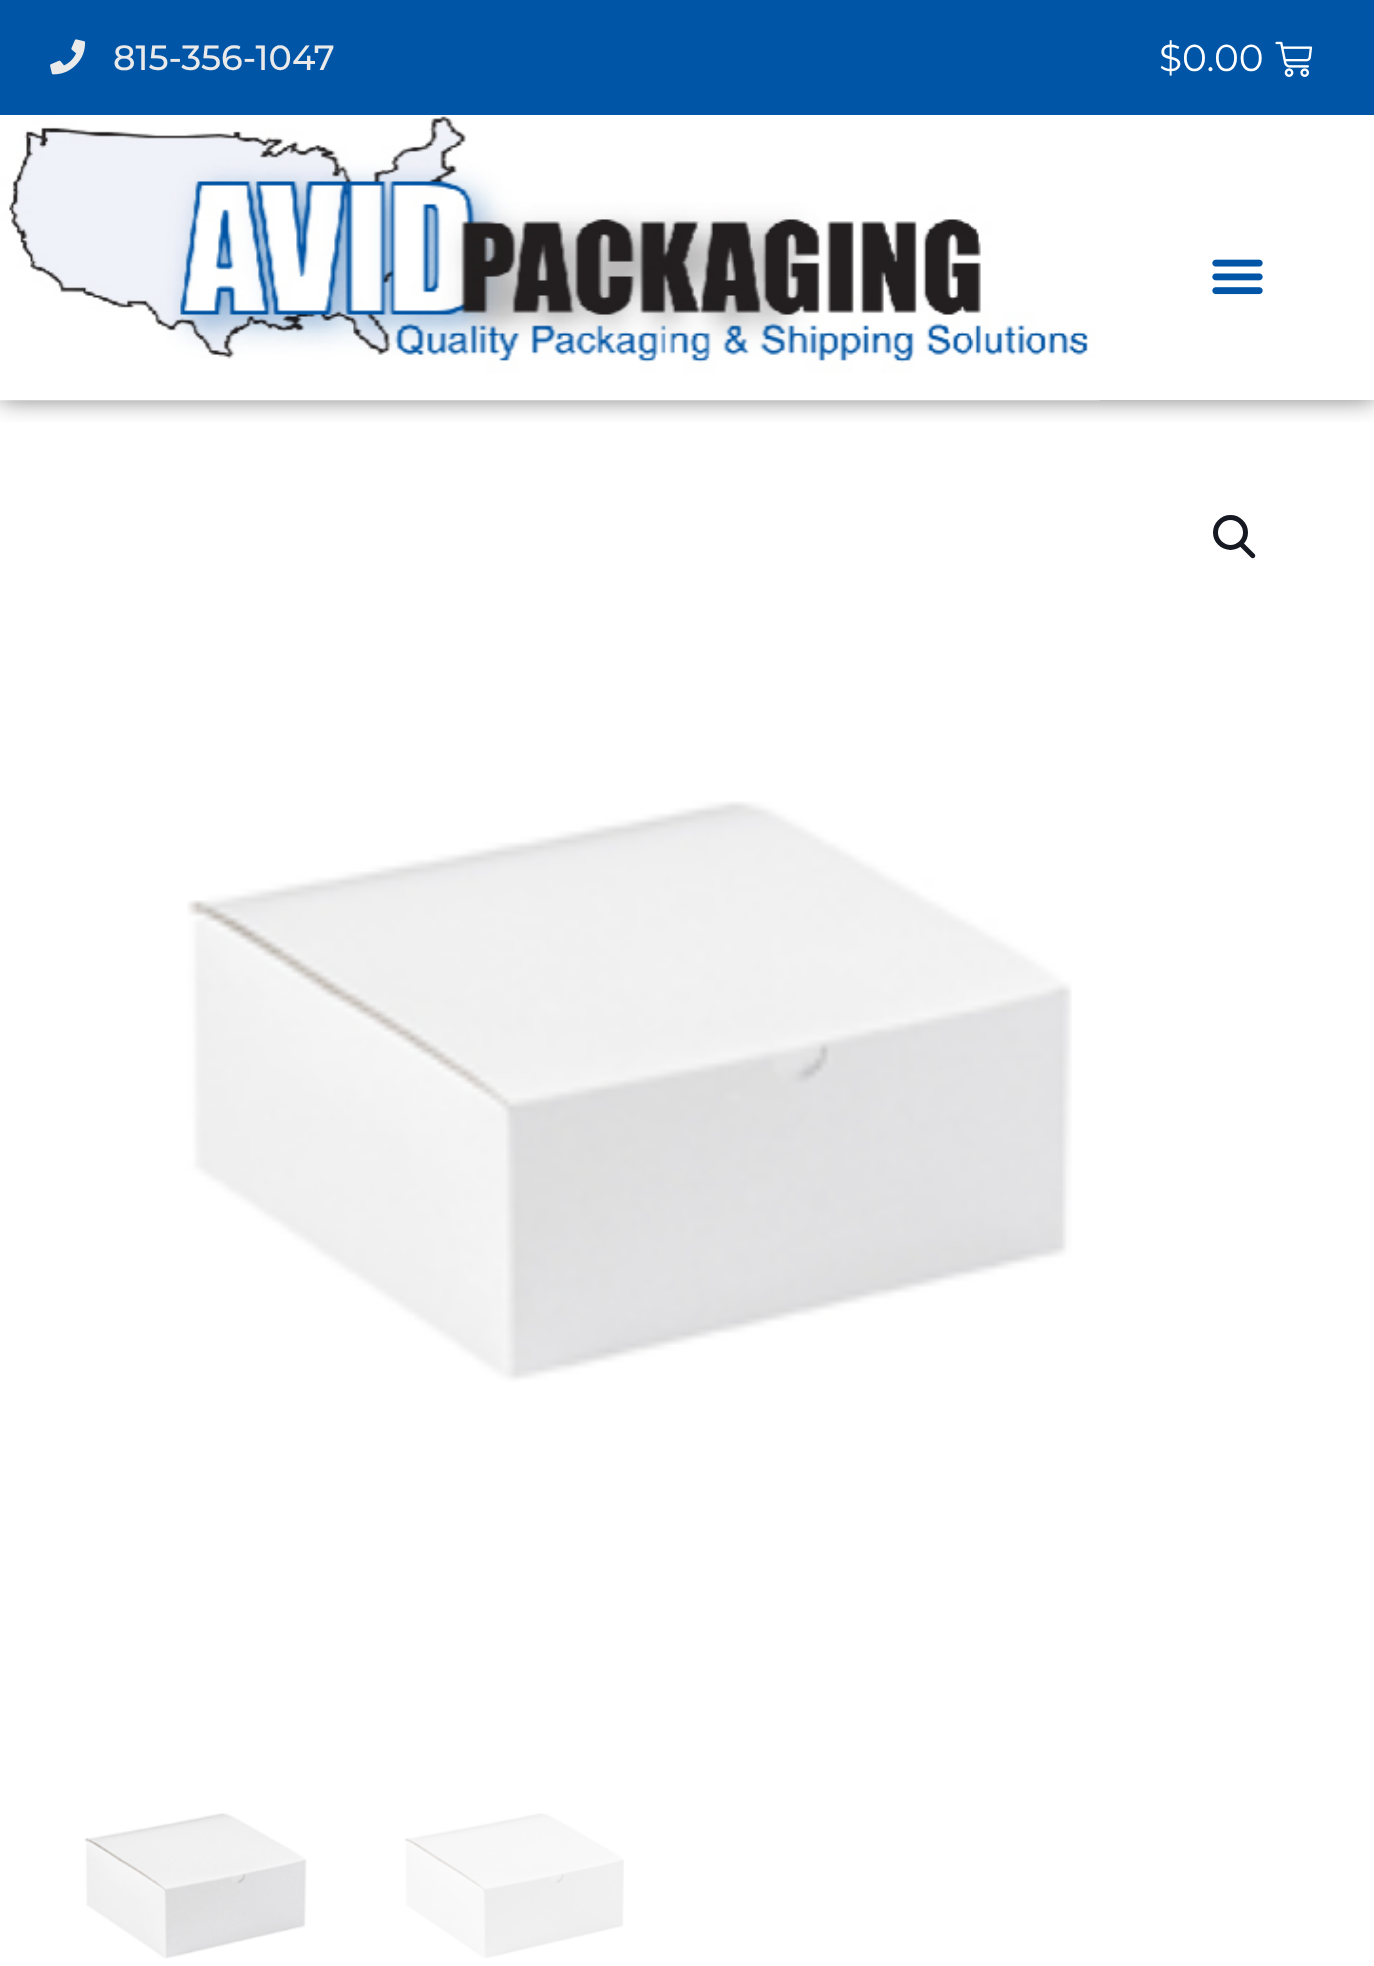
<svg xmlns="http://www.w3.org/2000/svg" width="1374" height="1966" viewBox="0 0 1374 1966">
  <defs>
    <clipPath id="clip1"><path d="M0 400h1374v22H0z"/></clipPath>
  </defs>
  <rect width="100%" height="100%" fill="#fff"/>
  <g clip-path="url(#clip1)">
    <path d="M0 0h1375v400H0z" fill="#00000080" filter="blur(12.5px)"/>
  </g>
  <path d="M0 0h1374v115H0z" fill="#0055a6"/>
  <image x="50" y="39" width="36" height="36" href="img/1.png"/>
  <image x="1275" y="41" width="38" height="36" href="img/2.png"/>
  <image x="0" y="116" width="1100" height="285" href="img/3.png"/>
  <image x="1212" y="259" width="51" height="36" href="img/4.png"/>
  <circle cx="1230.5" cy="532.5" r="15" fill="none" stroke="#161922" stroke-width="5"/>
  <path d="M1240.5 543.5C1241.5 542.5 1243 542.5 1244 543.5L1254.5 554C1255.5 555 1255.5 556.5 1254.5 557.5C1253.5 558.5 1252 558.5 1251 557.5L1240.5 547C1239.5 546 1239.5 544.5 1240.5 543.5Z" fill="#161922"/>
  <image x="187" y="801" width="885" height="581" href="img/5.png"/>
  <image x="84" y="1813" width="223" height="146" href="img/6.png"/>
  <image x="404" y="1813" width="220" height="145" href="img/7.png"/>
  <text x="113" y="70" font-family="Montserrat" font-size="35" font-weight="500" fill="#eaeaea">815-356-1047</text>
  <text x="1159" y="71" font-family="Montserrat" font-size="37.5" fill="#fff">$0.00</text>
</svg>
